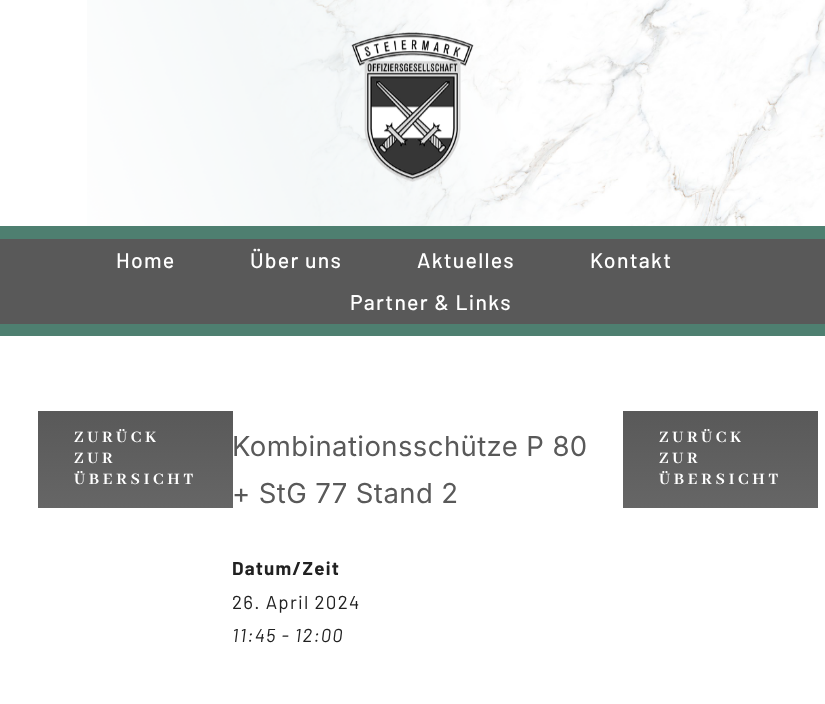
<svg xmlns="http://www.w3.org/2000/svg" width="825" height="704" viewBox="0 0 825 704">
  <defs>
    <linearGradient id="g1" gradientUnits="userSpaceOnUse" x1="135" y1="411" x2="135" y2="508"><stop offset="0" stop-color="#595959"/><stop offset="1" stop-color="#666"/></linearGradient>
    <linearGradient id="g2" gradientUnits="userSpaceOnUse" x1="720" y1="411" x2="720" y2="508"><stop offset="0" stop-color="#595959"/><stop offset="1" stop-color="#666"/></linearGradient>
  </defs>
  <rect width="100%" height="100%" fill="#fff"/>
  <image x="87" y="0" width="738" height="226" href="img/1.png"/>
  <image x="351" y="32" width="123" height="150" href="img/2.png"/>
  <path d="M0 239h825v85H0z" fill="#595959"/>
  <path d="M0 226h825v13H0z" fill="#4e7f70"/>
  <path d="M0 324h825v12H0z" fill="#4e7f70"/>
  <path d="M38 411h195v97H38z" fill="url(#g1)"/>
  <path d="M623 411h195v97H623z" fill="url(#g2)"/>
  <g font-family="Barlow" font-size="21.25" font-weight="500" letter-spacing="1.25" fill="#fff">
    <text x="116" y="268">Home</text>
    <text x="250" y="268">Über uns</text>
    <text x="417" y="268">Aktuelles</text>
    <text x="590" y="268">Kontakt</text>
    <text x="350" y="310">Partner &amp; Links</text>
  </g>
  <g font-family="Abhaya Libre" font-size="17.5" font-weight="bold" letter-spacing="3.75" fill="#fff">
    <text x="74" y="442">ZURÜCK</text>
    <text x="74" y="463">ZUR</text>
    <text x="74" y="484">ÜBERSICHT</text>
  </g>
  <g font-family="Inter" font-size="27.5" letter-spacing="0.4" fill="#595959">
    <text x="232" y="456">Kombinationsschütze P 80</text>
    <text x="232" y="503">+ StG 77 Stand 2</text>
  </g>
  <text x="232" y="575" font-family="Barlow" font-size="18.75" font-weight="bold" letter-spacing="1.25" fill="#212121">Datum/Zeit</text>
  <text x="232" y="609" font-family="Barlow" font-size="18.75" letter-spacing="1.25" fill="#212121">26. April 2024</text>
  <text x="232" y="642" font-family="Barlow" font-size="18.75" font-style="italic" letter-spacing="1.25" fill="#212121">11:45 - 12:00</text>
  <g font-family="Abhaya Libre" font-size="17.5" font-weight="bold" letter-spacing="3.75" fill="#fff">
    <text x="659" y="442">ZURÜCK</text>
    <text x="659" y="463">ZUR</text>
    <text x="659" y="484">ÜBERSICHT</text>
  </g>
</svg>
